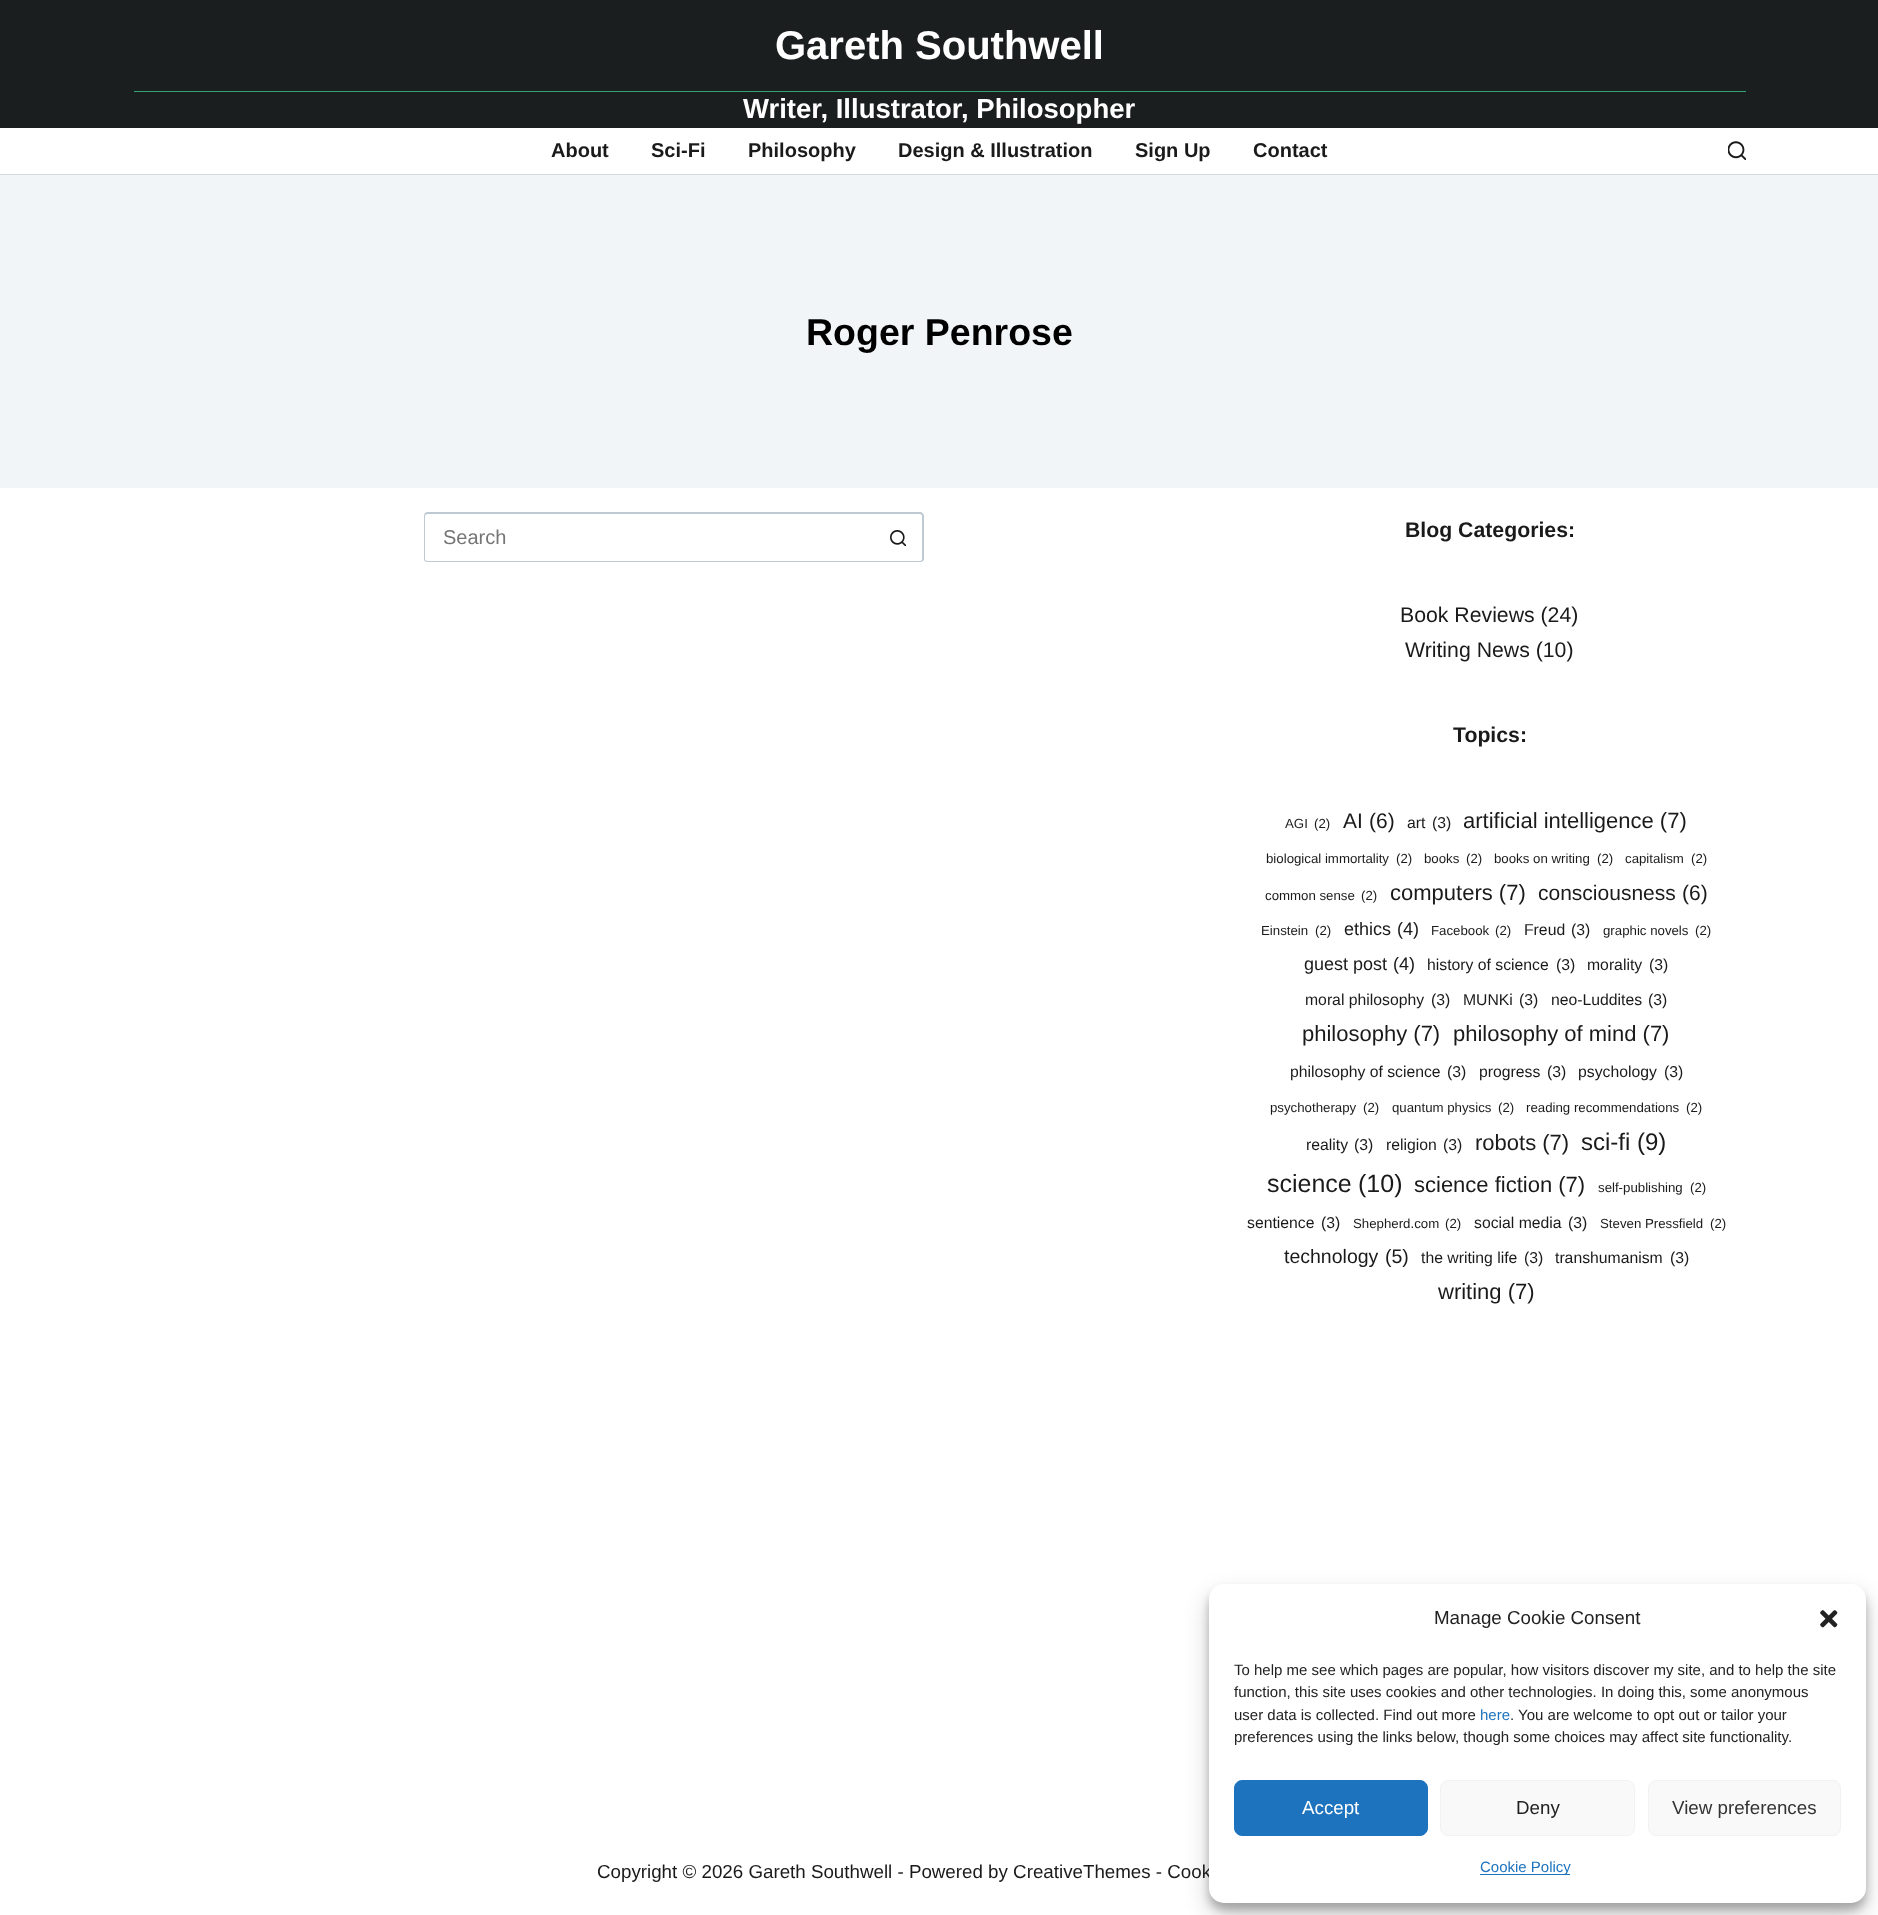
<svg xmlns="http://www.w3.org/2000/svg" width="1878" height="1915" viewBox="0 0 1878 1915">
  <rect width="100%" height="100%" fill="#fff"/>
  <path d="M0 0h1878v128H0z" fill="#1b1e1e"/>
  <path d="M134 91h1612v1H134z" fill="#33a370"/>
  <path d="M0 174h1878v1H0z" fill="#d5d8dc"/>
  <image x="1728" y="141" width="18" height="19" href="img/1.png"/>
  <path d="M0 175h1878v313H0z" fill="#f2f5f7"/>
  <path d="M428 512H874V562H428C425 562 424 561 424 559V516C424 514 425 512 428 512ZM428 514H874V561H428C426 561 425 560 425 559V516C425 515 426 514 428 514Z" fill="#bfc9d2" fill-rule="evenodd"/>
  <path d="M874 512H920C922 512 924 514 924 516V559C924 561 922 562 920 562H874ZM874 514H920C921 514 922 515 922 516V559C922 560 921 561 920 561H874Z" fill="#bfc9d2" fill-rule="evenodd"/>
  <image x="890" y="530" width="16" height="16" href="img/2.png"/>
  <rect x="1209" y="1591" width="657" height="319" rx="15" fill="#0000003b" filter="blur(4px)"/>
  <rect x="1209" y="1596" width="657" height="319" rx="15" fill="#00000030" filter="blur(12.5px)"/>
  <text x="775" y="59" font-family="Liberation Sans" font-size="40" font-weight="bold" fill="#fff">Gareth Southwell</text>
  <text x="743" y="118" font-family="Liberation Sans" font-size="27.5" font-weight="bold" fill="#fff">Writer, Illustrator, Philosopher</text>
  <g font-family="Liberation Sans" font-size="20" font-weight="bold" fill="#1a1a1a">
    <text x="551" y="157">About</text>
    <text x="651" y="157">Sci-Fi</text>
    <text x="748" y="157">Philosophy</text>
    <text x="898" y="157">Design &amp; Illustration</text>
    <text x="1135" y="157">Sign Up</text>
    <text x="1253" y="157">Contact</text>
  </g>
  <text x="806" y="345" font-family="Liberation Sans" font-size="37.5" font-weight="bold" fill="#000">Roger Penrose</text>
  <text x="443" y="544" font-family="Liberation Sans" font-size="20" fill="#757575">Search</text>
  <text x="1405" y="537" font-family="Liberation Sans" font-size="21.25" font-weight="bold" fill="#1a1a1a">Blog Categories:</text>
  <g font-family="Liberation Sans" font-size="21.25" fill="#1a1a1a">
    <text x="1400" y="622">Book Reviews (24)</text>
    <text x="1405" y="657">Writing News (10)</text>
  </g>
  <text x="1453" y="742" font-family="Liberation Sans" font-size="21.25" font-weight="bold" fill="#1a1a1a">Topics:</text>
  <g font-family="Liberation Sans" font-size="13.25" fill="#1a1a1a">
    <text x="1285" y="828">AGI</text>
    <text x="1314" y="828">(2)</text>
  </g>
  <g font-family="Liberation Sans" font-size="21" fill="#1a1a1a">
    <text x="1343" y="828">AI</text>
    <text x="1369" y="828">(6)</text>
  </g>
  <g font-family="Liberation Sans" font-size="15.75" fill="#1a1a1a">
    <text x="1407" y="828">art</text>
    <text x="1432" y="828">(3)</text>
  </g>
  <text x="1463" y="828" font-family="Liberation Sans" font-size="22" fill="#1a1a1a">artificial intelligence (7)</text>
  <g font-family="Liberation Sans" font-size="13.25" fill="#1a1a1a">
    <text x="1266" y="863">biological immortality</text>
    <text x="1396" y="863">(2)</text>
    <text x="1424" y="863">books</text>
    <text x="1466" y="863">(2)</text>
    <text x="1494" y="863">books on writing</text>
    <text x="1597" y="863">(2)</text>
    <text x="1625" y="863">capitalism</text>
    <text x="1691" y="863">(2)</text>
    <text x="1265" y="900">common sense</text>
    <text x="1361" y="900">(2)</text>
  </g>
  <text x="1390" y="900" font-family="Liberation Sans" font-size="22" fill="#1a1a1a">computers (7)</text>
  <g font-family="Liberation Sans" font-size="21" fill="#1a1a1a">
    <text x="1538" y="900">consciousness</text>
    <text x="1682" y="900">(6)</text>
  </g>
  <g font-family="Liberation Sans" font-size="13.25" fill="#1a1a1a">
    <text x="1261" y="935">Einstein</text>
    <text x="1315" y="935">(2)</text>
  </g>
  <g font-family="Liberation Sans" font-size="18" fill="#1a1a1a">
    <text x="1344" y="935">ethics</text>
    <text x="1397" y="935">(4)</text>
  </g>
  <g font-family="Liberation Sans" font-size="13.25" fill="#1a1a1a">
    <text x="1431" y="935">Facebook</text>
    <text x="1495" y="935">(2)</text>
  </g>
  <g font-family="Liberation Sans" font-size="15.75" fill="#1a1a1a">
    <text x="1524" y="935">Freud</text>
    <text x="1571" y="935">(3)</text>
  </g>
  <g font-family="Liberation Sans" font-size="13.25" fill="#1a1a1a">
    <text x="1603" y="935">graphic novels</text>
    <text x="1695" y="935">(2)</text>
  </g>
  <g font-family="Liberation Sans" font-size="18" fill="#1a1a1a">
    <text x="1304" y="970">guest post</text>
    <text x="1393" y="970">(4)</text>
  </g>
  <g font-family="Liberation Sans" font-size="15.75" fill="#1a1a1a">
    <text x="1427" y="970">history of science</text>
    <text x="1556" y="970">(3)</text>
    <text x="1587" y="970">morality</text>
    <text x="1649" y="970">(3)</text>
    <text x="1305" y="1005">moral philosophy</text>
    <text x="1431" y="1005">(3)</text>
    <text x="1463" y="1005">MUNKi</text>
    <text x="1519" y="1005">(3)</text>
    <text x="1551" y="1005">neo-Luddites</text>
    <text x="1648" y="1005">(3)</text>
  </g>
  <g font-family="Liberation Sans" font-size="22" fill="#1a1a1a">
    <text x="1302" y="1041">philosophy (7)</text>
    <text x="1453" y="1041">philosophy of mind (7)</text>
  </g>
  <g font-family="Liberation Sans" font-size="15.75" fill="#1a1a1a">
    <text x="1290" y="1077">philosophy of science</text>
    <text x="1447" y="1077">(3)</text>
    <text x="1479" y="1077">progress</text>
    <text x="1547" y="1077">(3)</text>
    <text x="1578" y="1077">psychology</text>
    <text x="1664" y="1077">(3)</text>
  </g>
  <g font-family="Liberation Sans" font-size="13.25" fill="#1a1a1a">
    <text x="1270" y="1112">psychotherapy</text>
    <text x="1363" y="1112">(2)</text>
    <text x="1392" y="1112">quantum physics</text>
    <text x="1498" y="1112">(2)</text>
    <text x="1526" y="1112">reading recommendations</text>
    <text x="1686" y="1112">(2)</text>
  </g>
  <g font-family="Liberation Sans" font-size="15.75" fill="#1a1a1a">
    <text x="1306" y="1150">reality</text>
    <text x="1354" y="1150">(3)</text>
    <text x="1386" y="1150">religion</text>
    <text x="1443" y="1150">(3)</text>
  </g>
  <text x="1475" y="1150" font-family="Liberation Sans" font-size="22" fill="#1a1a1a">robots (7)</text>
  <g font-family="Liberation Sans" font-size="24" fill="#1a1a1a">
    <text x="1581" y="1150">sci-fi</text>
    <text x="1637" y="1150">(9)</text>
  </g>
  <g font-family="Liberation Sans" font-size="25" fill="#1a1a1a">
    <text x="1267" y="1192">science</text>
    <text x="1358" y="1192">(10)</text>
  </g>
  <text x="1414" y="1192" font-family="Liberation Sans" font-size="22" fill="#1a1a1a">science fiction (7)</text>
  <g font-family="Liberation Sans" font-size="13.25" fill="#1a1a1a">
    <text x="1598" y="1192">self-publishing</text>
    <text x="1690" y="1192">(2)</text>
  </g>
  <g font-family="Liberation Sans" font-size="15.75" fill="#1a1a1a">
    <text x="1247" y="1228">sentience</text>
    <text x="1321" y="1228">(3)</text>
  </g>
  <g font-family="Liberation Sans" font-size="13.25" fill="#1a1a1a">
    <text x="1353" y="1228">Shepherd.com</text>
    <text x="1445" y="1228">(2)</text>
  </g>
  <g font-family="Liberation Sans" font-size="15.75" fill="#1a1a1a">
    <text x="1474" y="1228">social media</text>
    <text x="1568" y="1228">(3)</text>
  </g>
  <g font-family="Liberation Sans" font-size="13.25" fill="#1a1a1a">
    <text x="1600" y="1228">Steven Pressfield</text>
    <text x="1710" y="1228">(2)</text>
  </g>
  <g font-family="Liberation Sans" font-size="19.5" fill="#1a1a1a">
    <text x="1284" y="1263">technology</text>
    <text x="1385" y="1263">(5)</text>
  </g>
  <g font-family="Liberation Sans" font-size="15.75" fill="#1a1a1a">
    <text x="1421" y="1263">the writing life</text>
    <text x="1524" y="1263">(3)</text>
    <text x="1555" y="1263">transhumanism</text>
    <text x="1670" y="1263">(3)</text>
  </g>
  <text x="1438" y="1299" font-family="Liberation Sans" font-size="22" fill="#1a1a1a">writing (7)</text>
  <text x="597" y="1878" font-family="Liberation Sans" font-size="18.75" fill="#1a1a1a">Copyright © 2026 Gareth Southwell - Powered by CreativeThemes - Cook</text>
  <rect x="1209" y="1584" width="657" height="319" rx="15" fill="#fff"/>
  <text x="1434" y="1624" font-family="Liberation Sans" font-size="18.75" fill="#222">Manage Cookie Consent</text>
  <image x="1820" y="1610" width="18" height="18" href="img/3.png"/>
  <g font-family="Liberation Sans" font-size="15" fill="#222">
    <text x="1234" y="1675">To help me see which pages are popular, how visitors discover my site, and to help the site</text>
    <text x="1234" y="1697">function, this site uses cookies and other technologies. In doing this, some anonymous</text>
    <text x="1234" y="1720">user data is collected. Find out more</text>
  </g>
  <text x="1480" y="1720" font-family="Liberation Sans" font-size="15" fill="#1e73be">here</text>
  <g font-family="Liberation Sans" font-size="15" fill="#222">
    <text x="1510" y="1720">. You are welcome to opt out or tailor your</text>
    <text x="1234" y="1742">preferences using the links below, though some choices may affect site functionality.</text>
  </g>
  <rect x="1234.5" y="1780.5" width="193" height="55" rx="7.5" fill="#1e73be" stroke="#1e73be"/>
  <text x="1302" y="1814" font-family="Liberation Sans" font-size="18.75" fill="#fff">Accept</text>
  <rect x="1440.5" y="1780.5" width="194" height="55" rx="7.5" fill="#f9f9f9" stroke="#f2f2f2"/>
  <text x="1516" y="1814" font-family="Liberation Sans" font-size="18.75" fill="#222">Deny</text>
  <rect x="1648.5" y="1780.5" width="192" height="55" rx="7.5" fill="#f9f9f9" stroke="#f2f2f2"/>
  <text x="1672" y="1814" font-family="Liberation Sans" font-size="18.75" fill="#333">View preferences</text>
  <path d="M1480 1874h90v1H1480z" fill="#1e73be"/>
  <text x="1480" y="1872" font-family="Liberation Sans" font-size="15" fill="#1e73be">Cookie Policy</text>
</svg>
